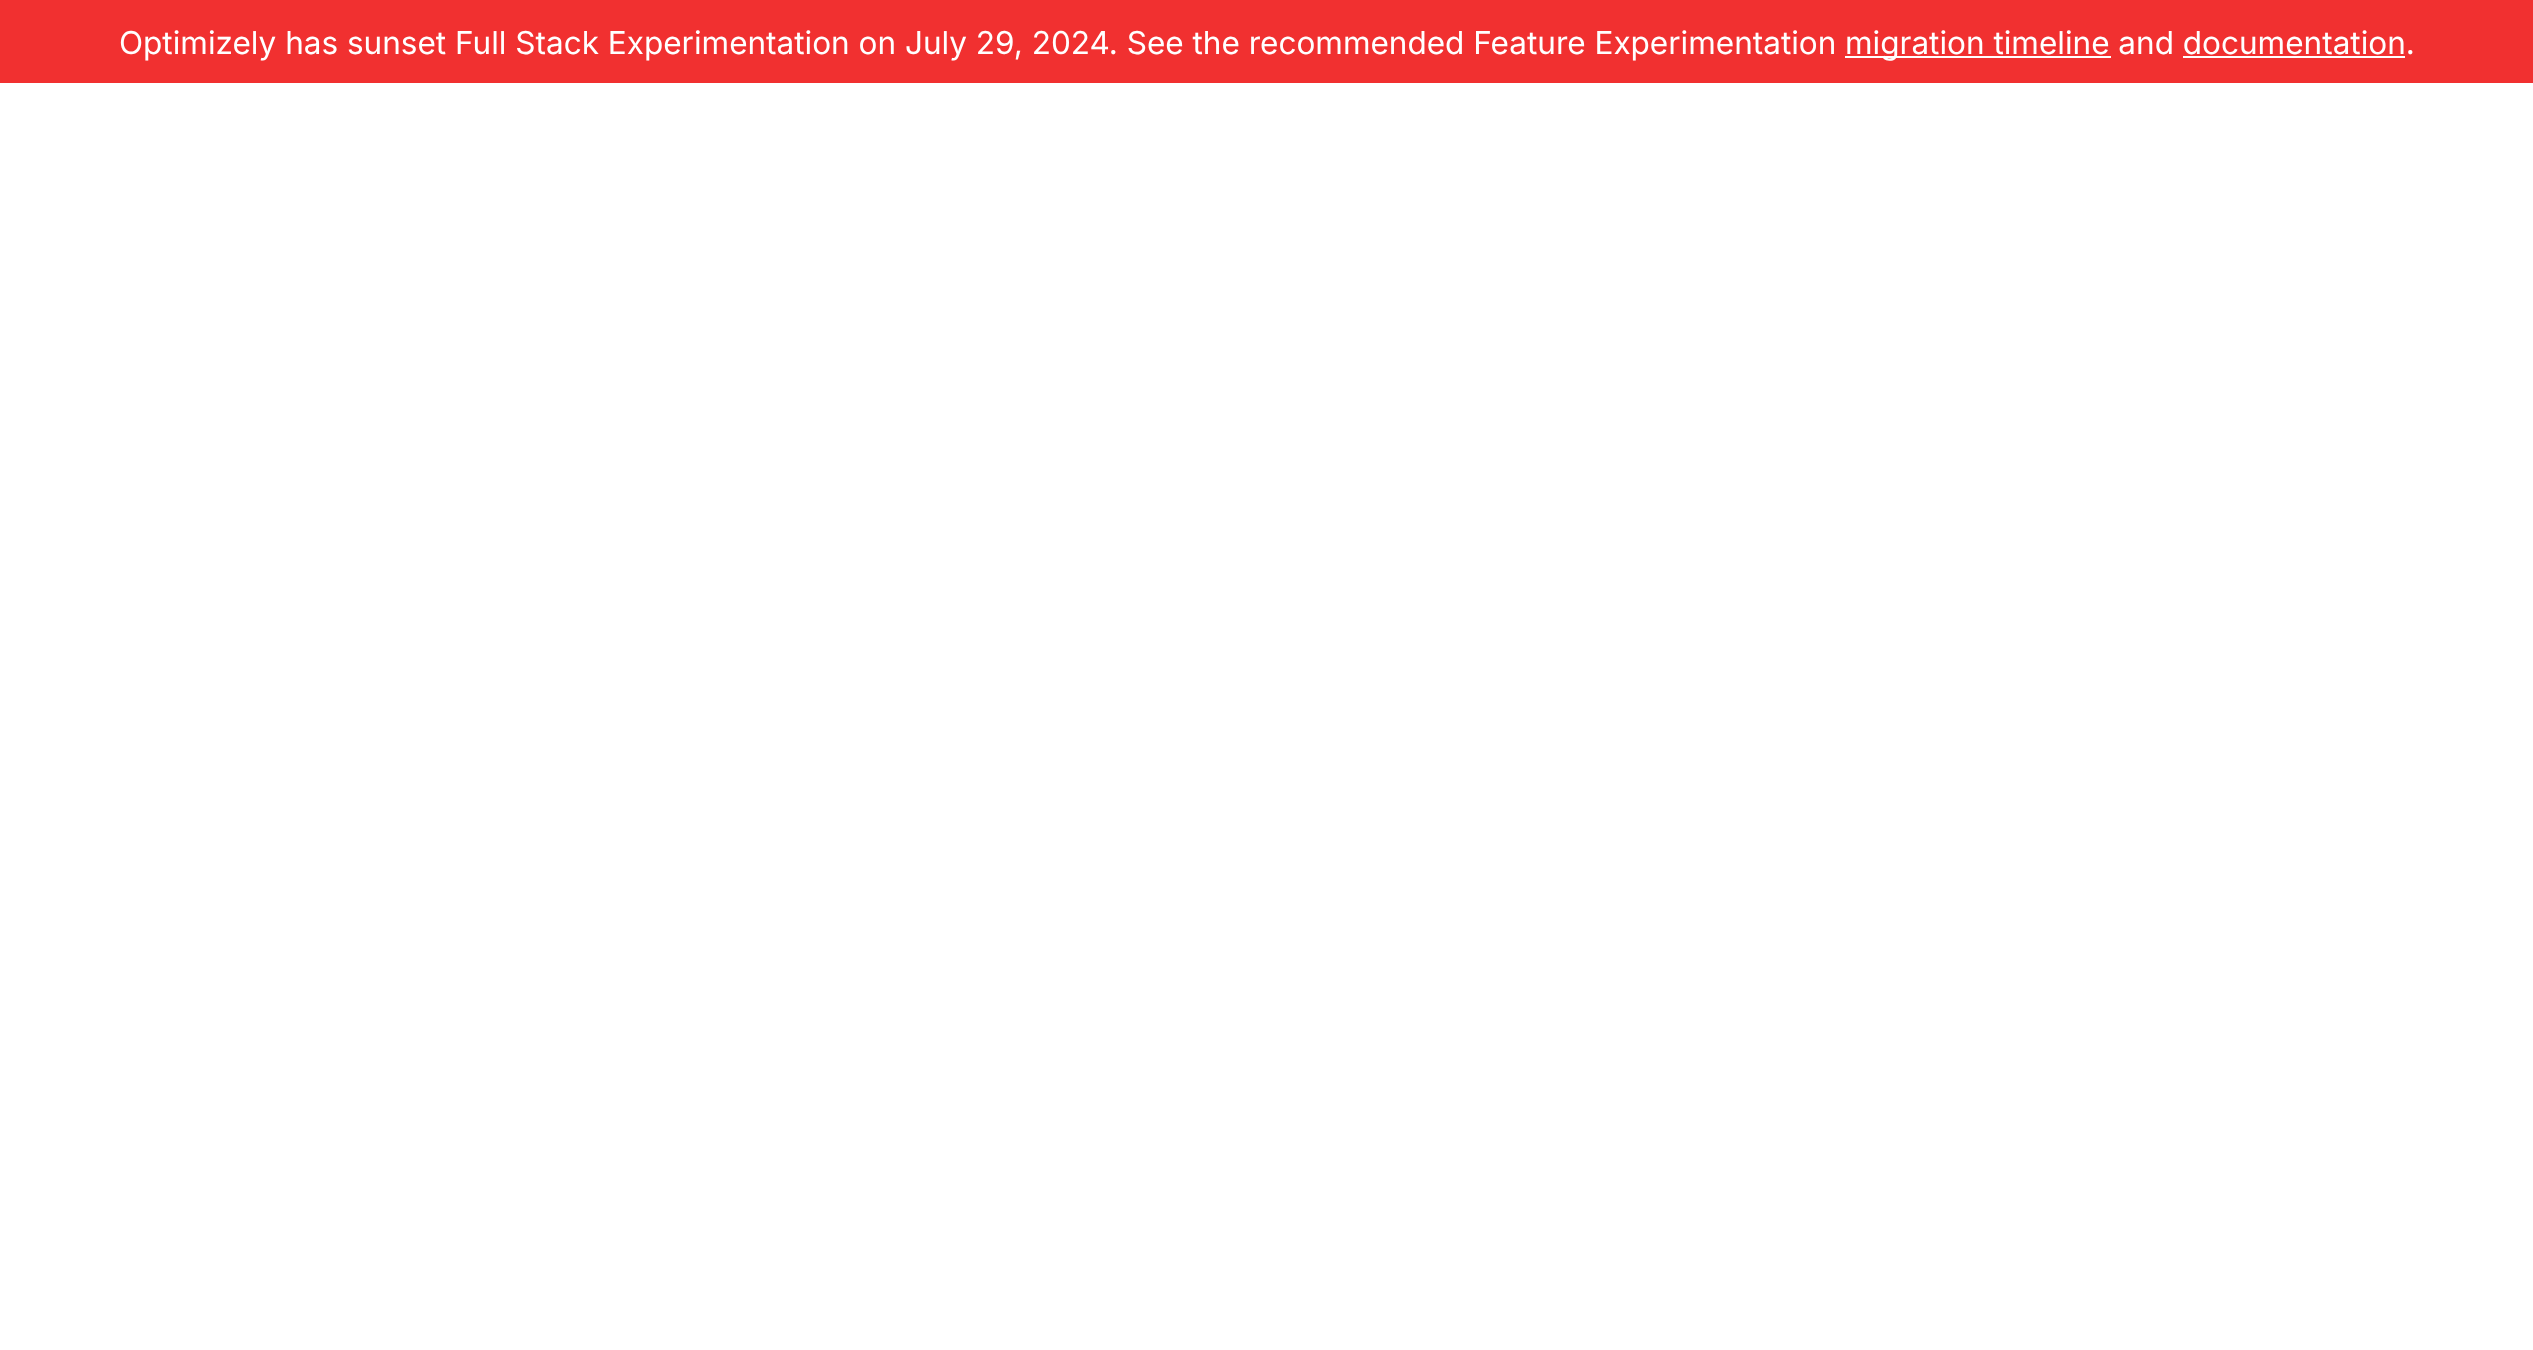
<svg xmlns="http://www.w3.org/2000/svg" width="2533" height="1350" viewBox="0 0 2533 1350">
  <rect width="100%" height="100%" fill="#fff"/>
  <path d="M0 0h2533v83H0z" fill="#f13030"/>
  <path d="M1845 56h266v2H1845z" fill="#fff"/>
  <path d="M2183 56h222v2H2183z" fill="#fff"/>
  <g font-family="Inter" font-size="31.5" fill="#fff">
    <text x="119" y="54">Optimizely has sunset Full Stack Experimentation on July 29, 2024. See the recommended Feature Experimentation</text>
    <text x="1845" y="54">migration timeline and documentation.</text>
  </g>
</svg>
